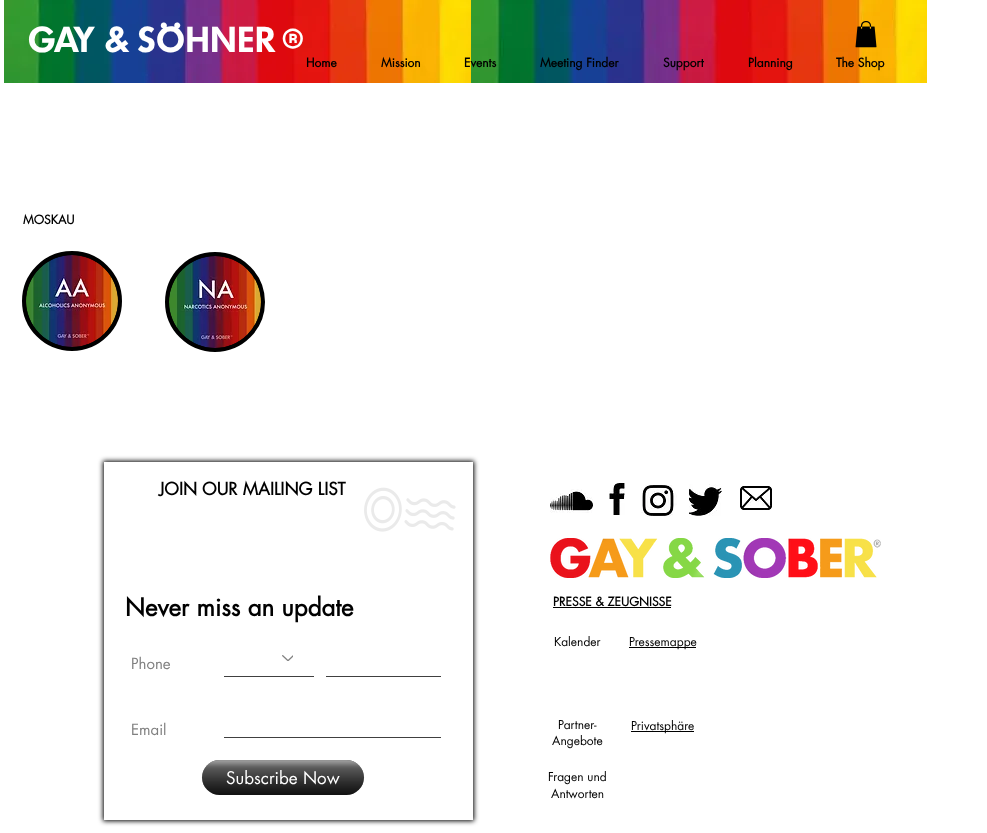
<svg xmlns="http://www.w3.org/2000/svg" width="987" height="833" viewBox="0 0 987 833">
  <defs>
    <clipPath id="clip1"><path d="M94 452H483V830H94ZM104 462H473V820H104Z" clip-rule="evenodd"/></clipPath>
  </defs>
  <rect width="100%" height="100%" fill="#fff"/>
  <image x="4" y="0" width="467" height="83" href="img/1.png"/>
  <image x="471" y="0" width="456" height="83" href="img/2.png"/>
  <image x="855" y="21" width="22" height="27" href="img/3.png"/>
  <circle cx="72" cy="301" r="48" fill="#000" stroke="#000" stroke-width="4"/>
  <image x="26" y="255" width="92" height="92" href="img/4.png"/>
  <circle cx="215" cy="302" r="48" fill="#000" stroke="#000" stroke-width="4"/>
  <image x="169" y="256" width="92" height="92" href="img/5.png"/>
  <g clip-path="url(#clip1)">
    <path d="M103 461h371v360H103z" fill="#000" filter="blur(2.5px)"/>
  </g>
  <image x="364" y="487" width="92" height="45" href="img/6.png"/>
  <image x="282" y="655" width="11" height="6" href="img/7.png"/>
  <path d="M224 676h90v1H224z" fill="#404040"/>
  <path d="M326 676h115v1H326z" fill="#404040"/>
  <path d="M224 737h217v1H224z" fill="#404040"/>
  <rect x="202" y="760" width="162" height="35" rx="17.5" fill="#000"/>
  <image x="202" y="760" width="162" height="35" href="img/8.png"/>
  <image x="550" y="489" width="43" height="24" href="img/9.png"/>
  <image x="609" y="483" width="16" height="32" href="img/10.png"/>
  <image x="641" y="485" width="36" height="32" href="img/11.png"/>
  <image x="689" y="484" width="33" height="32" href="img/12.png"/>
  <image x="740" y="486" width="32" height="24" href="img/13.png"/>
  <image x="550" y="538" width="331" height="40" href="img/14.png"/>
  <path d="M553 607h118v1H553z" fill="#000"/>
  <path d="M629 647h67v1H629z" fill="#000"/>
  <path d="M631 731h63v1H631z" fill="#000"/>
  <text x="28" y="52" font-family="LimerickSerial" font-size="35" font-weight="bold" letter-spacing="0.5" fill="#fff">GAY &amp;</text>
  <text x="138" y="52" font-family="LimerickSerial" font-size="35" font-weight="bold" letter-spacing="0.75" fill="#fff">SÖHNER</text>
  <text x="281" y="52" font-family="Syne" font-size="35" fill="#fff">®</text>
  <g font-family="futura" font-size="12" font-weight="bold" fill="#000">
    <text x="306" y="67">Home</text>
    <text x="381" y="67">Mission</text>
    <text x="464" y="67">Events</text>
    <text x="540" y="67">Meeting Finder</text>
    <text x="663" y="67">Support</text>
    <text x="748" y="67">Planning</text>
    <text x="836" y="67">The Shop</text>
    <text x="23" y="224">MOSKAU</text>
  </g>
  <text x="159" y="495" font-family="futura" font-size="17" font-weight="bold" fill="#000">JOIN OUR MAILING LIST</text>
  <text x="125" y="616" font-family="futura" font-size="24" font-weight="bold" fill="#000">Never miss an update</text>
  <g font-family="futura" font-size="15" fill="#808080">
    <text x="131" y="669">Phone</text>
    <text x="131" y="735">Email</text>
  </g>
  <text x="226" y="784" font-family="futura" font-size="17" fill="#fff">Subscribe Now</text>
  <text x="553" y="606" font-family="futura" font-size="12" font-weight="bold" fill="#000">PRESSE &amp; ZEUGNISSE</text>
  <g font-family="futura" font-size="12" fill="#000">
    <text x="554" y="646">Kalender</text>
    <text x="629" y="646">Pressemappe</text>
    <text x="558" y="729">Partner-</text>
    <text x="552" y="745">Angebote</text>
    <text x="631" y="730">Privatsphäre</text>
    <text x="548" y="781">Fragen und</text>
    <text x="551" y="798">Antworten</text>
  </g>
</svg>
